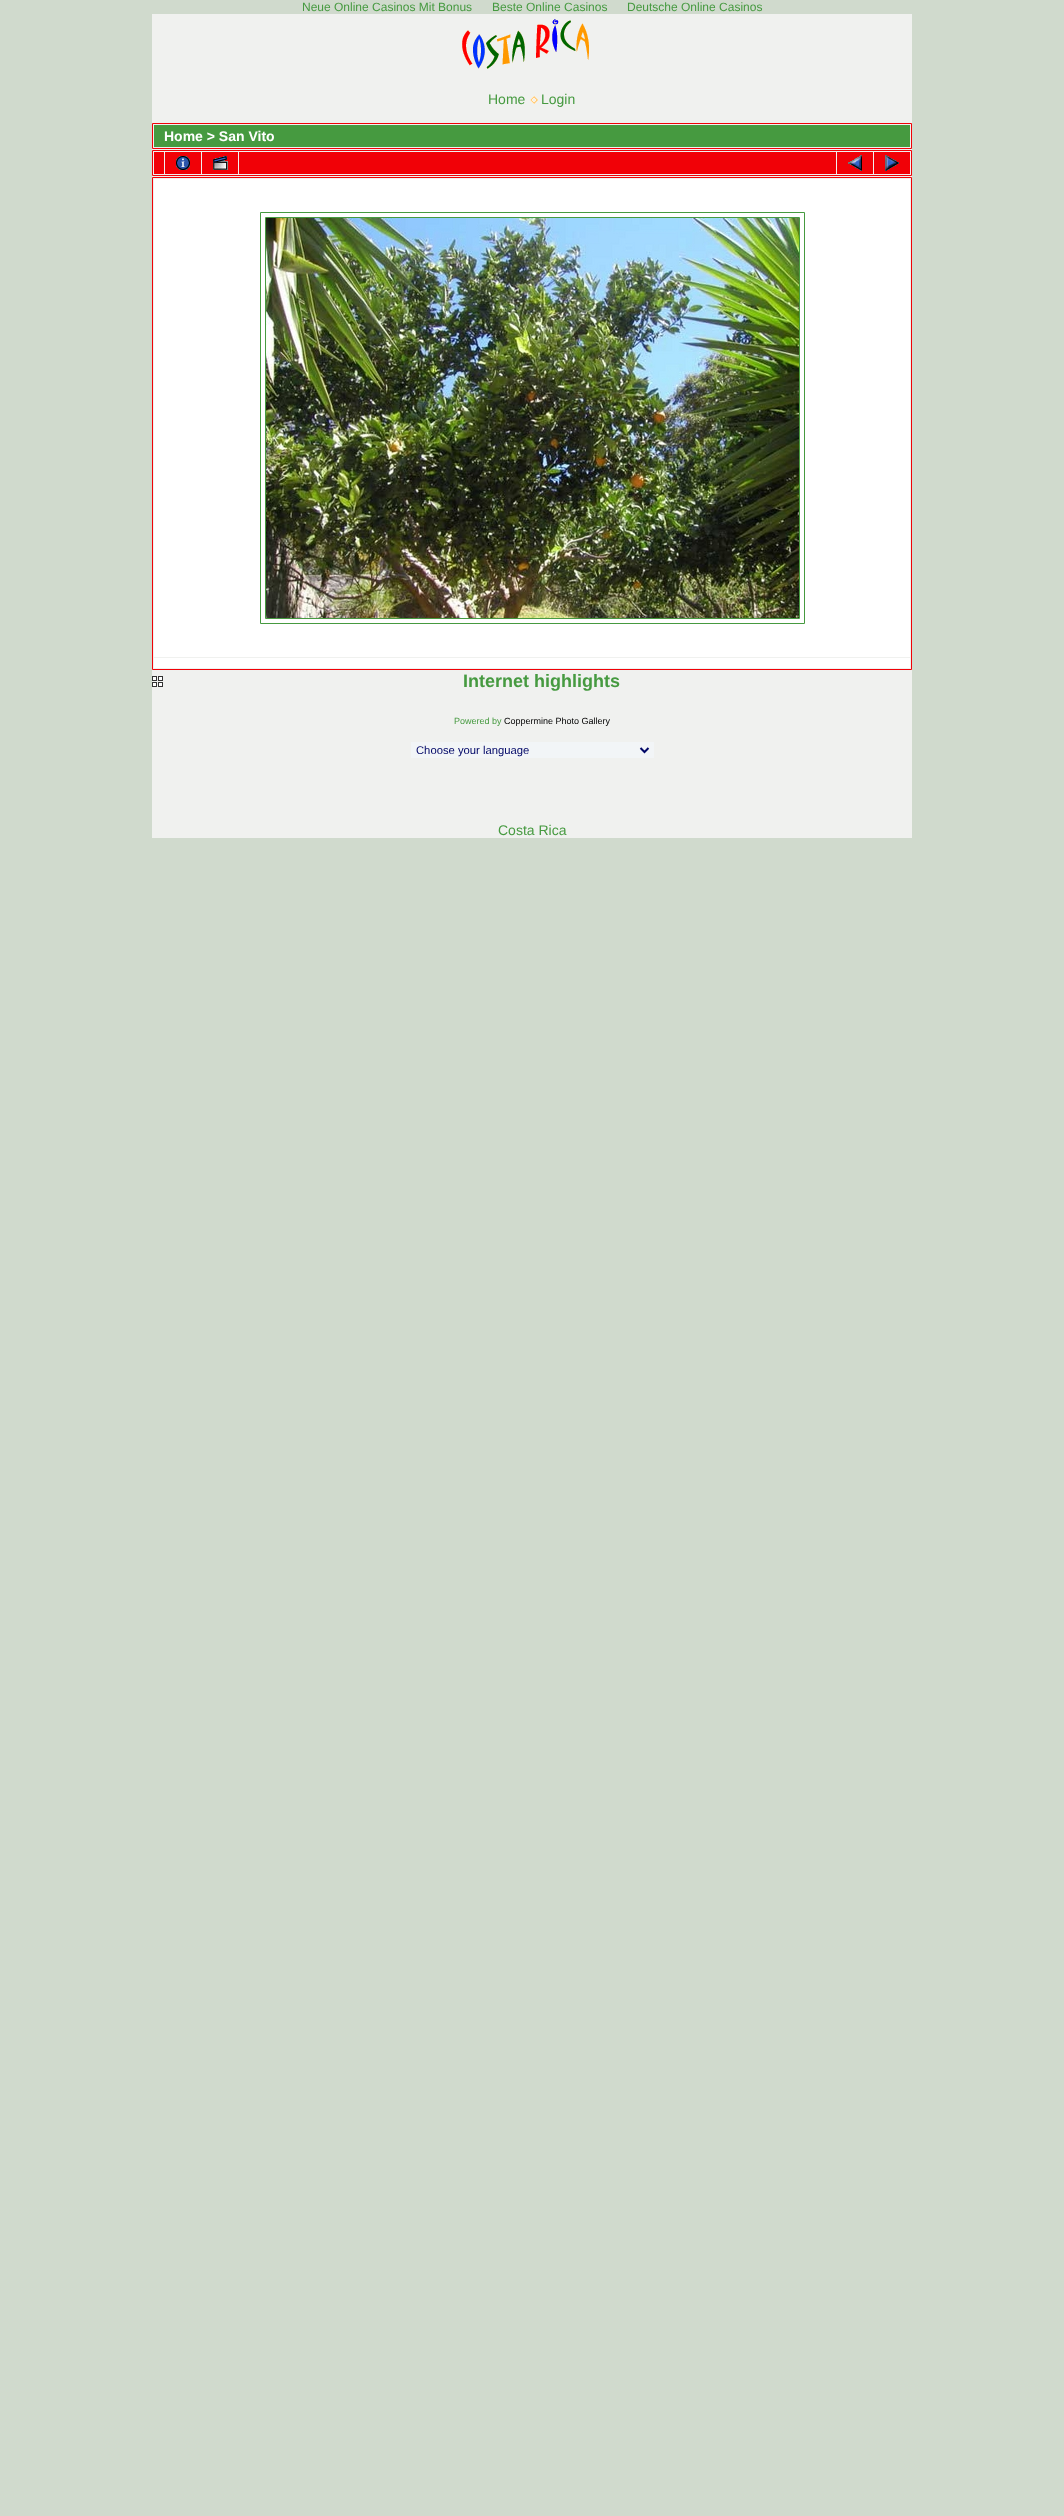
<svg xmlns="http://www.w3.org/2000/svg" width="1064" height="2516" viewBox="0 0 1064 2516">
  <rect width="100%" height="100%" fill="#d0dacd"/>
  <path d="M152 14h760v824H152z" fill="#f0f1ef"/>
  <image x="462" y="19" width="127" height="50" href="img/1.png"/>
  <image x="530" y="96" width="8" height="8" href="img/2.png"/>
  <path d="M152.5 123.5h759v25H152.5z" fill="none" stroke="#f10107"/>
  <path d="M154 125h756v22H154z" fill="#469a40"/>
  <path d="M152.5 150.5h759v25H152.5z" fill="none" stroke="#f10107"/>
  <path d="M154 152h10v22H154z" fill="#f10107"/>
  <path d="M165 152h36v22H165z" fill="#f10107"/>
  <image x="176" y="156" width="14" height="14" href="img/3.png"/>
  <path d="M202 152h36v22H202z" fill="#f10107"/>
  <image x="213" y="156" width="15" height="14" href="img/4.png"/>
  <path d="M239 152h597v22H239z" fill="#f10107"/>
  <path d="M837 152h36v22H837z" fill="#f10107"/>
  <image x="848" y="155" width="14" height="16" href="img/5.png"/>
  <path d="M874 152h36v22H874z" fill="#f10107"/>
  <image x="885" y="155" width="14" height="16" href="img/6.png"/>
  <path d="M152.5 177.5h759v492H152.5z" fill="none" stroke="#f10107"/>
  <path d="M154 179h756v478H154z" fill="#fff"/>
  <path d="M260.5 212.5h544v411H260.5z" fill="none" stroke="#469a40"/>
  <path d="M265.5 217.5h534v401H265.5z" fill="none" stroke="#469a40"/>
  <image x="266" y="218" width="533" height="400" href="img/7.png"/>
  <path d="M154 658h756v10H154z" fill="#fff"/>
  <image x="152" y="676" width="11" height="11" href="img/8.png"/>
  <path d="M411 742h243v16H411z" fill="#f2f5f7"/>
  <path d="M640.5 748L644.5 752L648.5 748" fill="none" stroke="#000666" stroke-width="2"/>
  <g font-family="Liberation Sans" font-size="12" fill="#469a40">
    <text x="302" y="11">Neue Online Casinos Mit Bonus</text>
    <text x="492" y="11">Beste Online Casinos</text>
    <text x="627" y="11">Deutsche Online Casinos</text>
  </g>
  <g font-family="Liberation Sans" font-size="14" fill="#469a40">
    <text x="488" y="104">Home</text>
    <text x="541" y="104">Login</text>
  </g>
  <text x="164" y="141" font-family="Liberation Sans" font-size="14" font-weight="bold" fill="#fff">Home &gt; San Vito</text>
  <text x="463" y="687" font-family="Liberation Sans" font-size="18" font-weight="bold" fill="#469a40">Internet highlights</text>
  <text x="454" y="724" font-family="Liberation Sans" font-size="9" fill="#469a40">Powered by</text>
  <text x="504" y="724" font-family="Liberation Sans" font-size="9" fill="#000">Coppermine Photo Gallery</text>
  <text x="416" y="754" font-family="Liberation Sans" font-size="11.25" fill="#000666">Choose your language</text>
  <text x="498" y="835" font-family="Liberation Sans" font-size="14" fill="#469a40">Costa Rica</text>
</svg>
